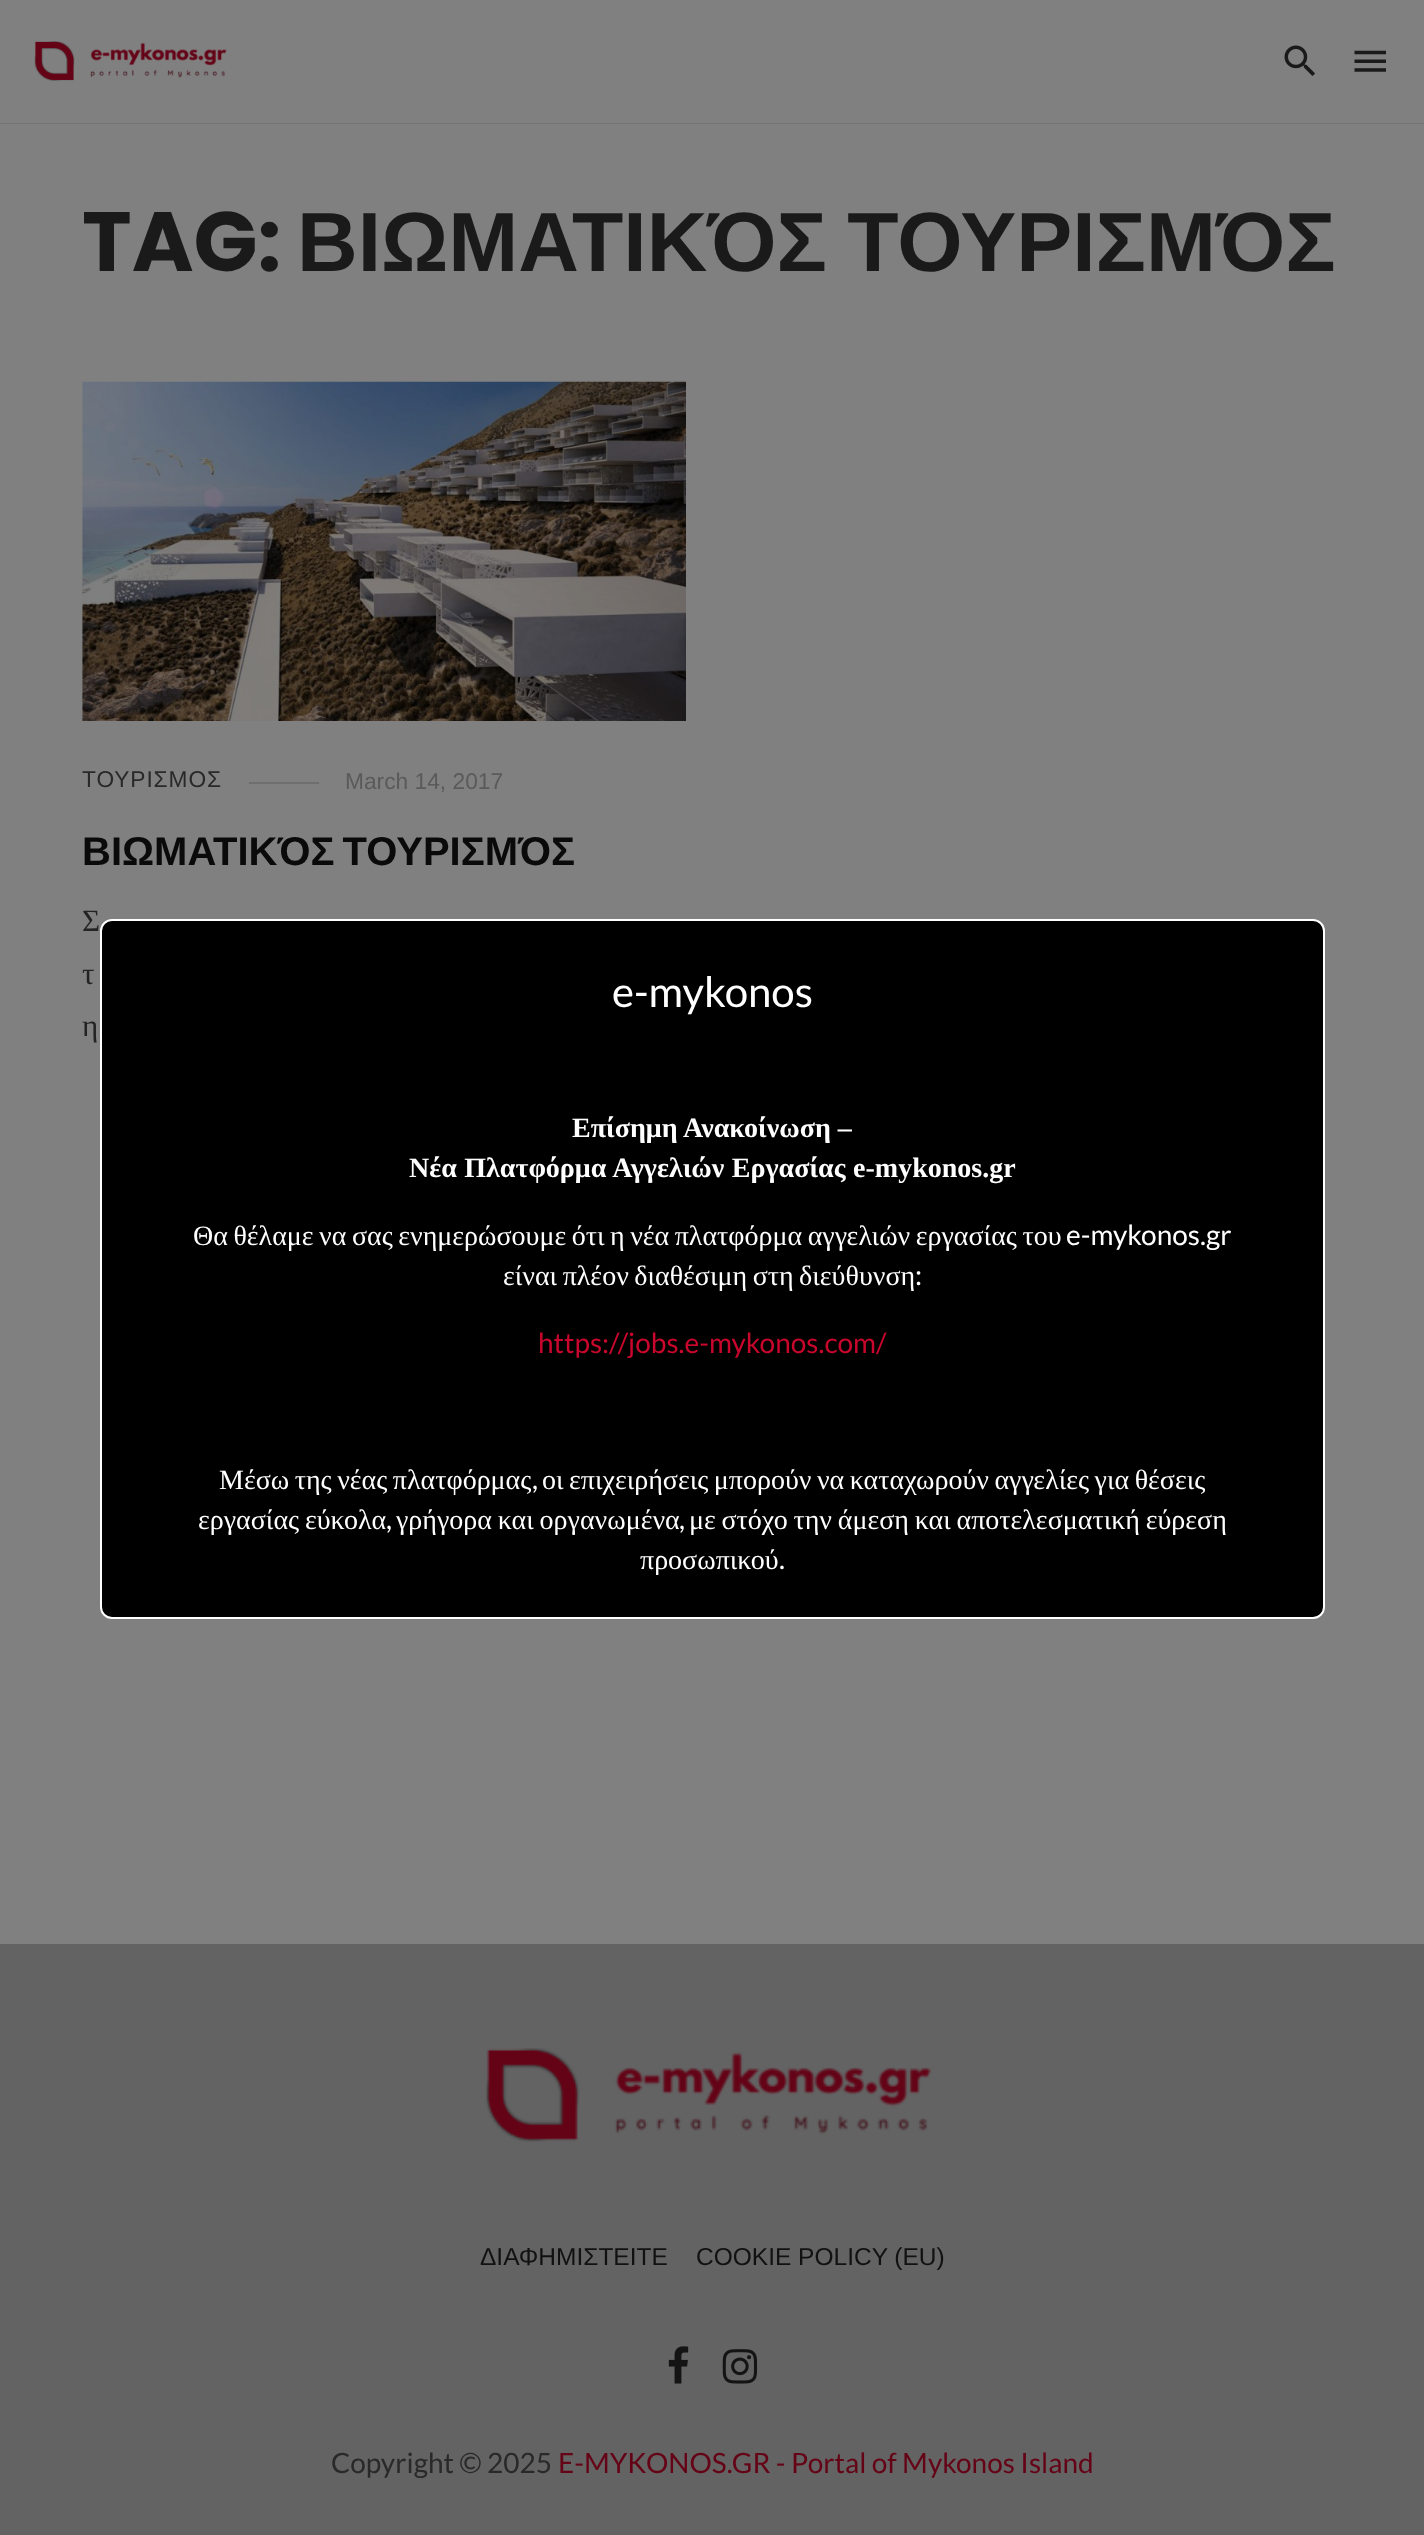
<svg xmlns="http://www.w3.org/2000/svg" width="1424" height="2535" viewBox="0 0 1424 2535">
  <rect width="100%" height="100%" fill="#808080"/>
  <path d="M0 122V124H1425V2H1424V122Z" fill="#797979"/>
  <path d="M0 122V124H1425V2H1424V122Z" fill="#0000000a"/>
  <path d="M0 122h1424v1H0z" fill="#808080"/>
  <image x="34" y="41" width="193" height="40" href="img/1.png"/>
  <image x="1284" y="45" width="31" height="31" href="img/2.png"/>
  <image x="1354" y="50" width="32" height="22" href="img/3.png"/>
  <image x="82" y="381" width="604" height="340" href="img/4.png"/>
  <path d="M249 782h70v2H249z" fill="#6f6f6f"/>
  <path d="M0 1944h1424v591H0z" fill="#636363"/>
  <image x="485" y="2048" width="447" height="94" href="img/5.png"/>
  <image x="668" y="2346" width="21" height="38" href="img/6.png"/>
  <image x="722" y="2349" width="36" height="35" href="img/7.png"/>
  <rect x="101" y="920" width="1223" height="698" rx="11" fill="#000" stroke="#fff" stroke-width="2"/>
  <text x="82" y="271" font-family="Poppins" font-size="84" font-weight="bold" fill="#1a1a1a">TAG:</text>
  <text x="297" y="271" word-spacing="-3" font-family="Liberation Sans" font-size="84" font-weight="bold" fill="#1a1a1a">ΒΙΩΜΑΤΙΚΌΣ ΤΟΥΡΙΣΜΌΣ</text>
  <text x="82" y="787" font-family="Arimo" font-size="22.75" letter-spacing="0.9" fill="#292929">ΤΟΥΡΙΣΜΟΣ</text>
  <text x="345" y="789" font-family="Arimo" font-size="22.75" fill="#5a5a5a">March 14, 2017</text>
  <text x="82" y="865" word-spacing="-3" font-family="Liberation Sans" font-size="40" font-weight="bold" fill="#0b0a0b">ΒΙΩΜΑΤΙΚΌΣ ΤΟΥΡΙΣΜΌΣ</text>
  <g font-family="Liberation Serif" font-size="31" fill="#222322">
    <text x="82" y="931" word-spacing="-1">Σ</text>
    <text x="82" y="984" word-spacing="-1">τ</text>
    <text x="82" y="1036">η</text>
  </g>
  <g font-family="Arimo" font-size="24.5" fill="#111">
    <text x="480" y="2265">ΔΙΑΦΗΜΙΣΤΕΙΤΕ</text>
    <text x="696" y="2265">COOKIE POLICY (EU)</text>
  </g>
  <text x="331" y="2473" font-family="Lato" font-size="28" fill="#292929">Copyright © 2025</text>
  <text x="558" y="2473" font-family="Lato" font-size="28" fill="#650316">E-MYKONOS.GR - Portal of Mykonos Island</text>
  <text x="612" y="1007" font-family="Lato" font-size="42" fill="#fff">e-mykonos</text>
  <g font-family="Liberation Serif" font-size="28" font-weight="bold" fill="#fff">
    <text x="572" y="1137">Επίσημη Ανακοίνωση –</text>
    <text x="409" y="1177" word-spacing="0.5">Νέα Πλατφόρμα Αγγελιών Εργασίας e-mykonos.gr</text>
  </g>
  <text x="193" y="1245" word-spacing="-1.5" font-family="Liberation Serif" font-size="28" fill="#fff">Θα θέλαμε να σας ενημερώσουμε ότι η νέα πλατφόρμα αγγελιών εργασίας του</text>
  <text x="1066" y="1245" font-family="Lato" font-size="28" fill="#fff">e-mykonos.gr</text>
  <text x="503" y="1285" word-spacing="-1.5" font-family="Liberation Serif" font-size="28" fill="#fff">είναι πλέον διαθέσιμη στη διεύθυνση</text>
  <text x="915" y="1285" font-family="Lato" font-size="28" fill="#fff">:</text>
  <text x="538" y="1353" font-family="Lato" font-size="28" fill="#c9062c">https://jobs.e-mykonos.com/</text>
  <text x="219" y="1489" word-spacing="-1.5" font-family="Liberation Serif" font-size="28" fill="#fff">Μέσω της νέας πλατφόρμας</text>
  <text x="532" y="1489" font-family="Lato" font-size="28" fill="#fff">,</text>
  <g font-family="Liberation Serif" font-size="28" fill="#fff">
    <text x="542" y="1489" word-spacing="-1.5">οι επιχειρήσεις μπορούν να καταχωρούν αγγελίες για θέσεις</text>
    <text x="198" y="1529" word-spacing="-1.25">εργασίας εύκολα</text>
  </g>
  <text x="386" y="1529" font-family="Lato" font-size="28" fill="#fff">,</text>
  <text x="396" y="1529" word-spacing="-1.25" font-family="Liberation Serif" font-size="28" fill="#fff">γρήγορα και οργανωμένα</text>
  <text x="679" y="1529" font-family="Lato" font-size="28" fill="#fff">,</text>
  <g font-family="Liberation Serif" font-size="28" fill="#fff">
    <text x="689" y="1529" word-spacing="-1.25">με στόχο την άμεση και αποτελεσματική εύρεση</text>
    <text x="640" y="1569">προσωπικού</text>
  </g>
  <text x="779" y="1569" font-family="Lato" font-size="28" fill="#fff">.</text>
</svg>
